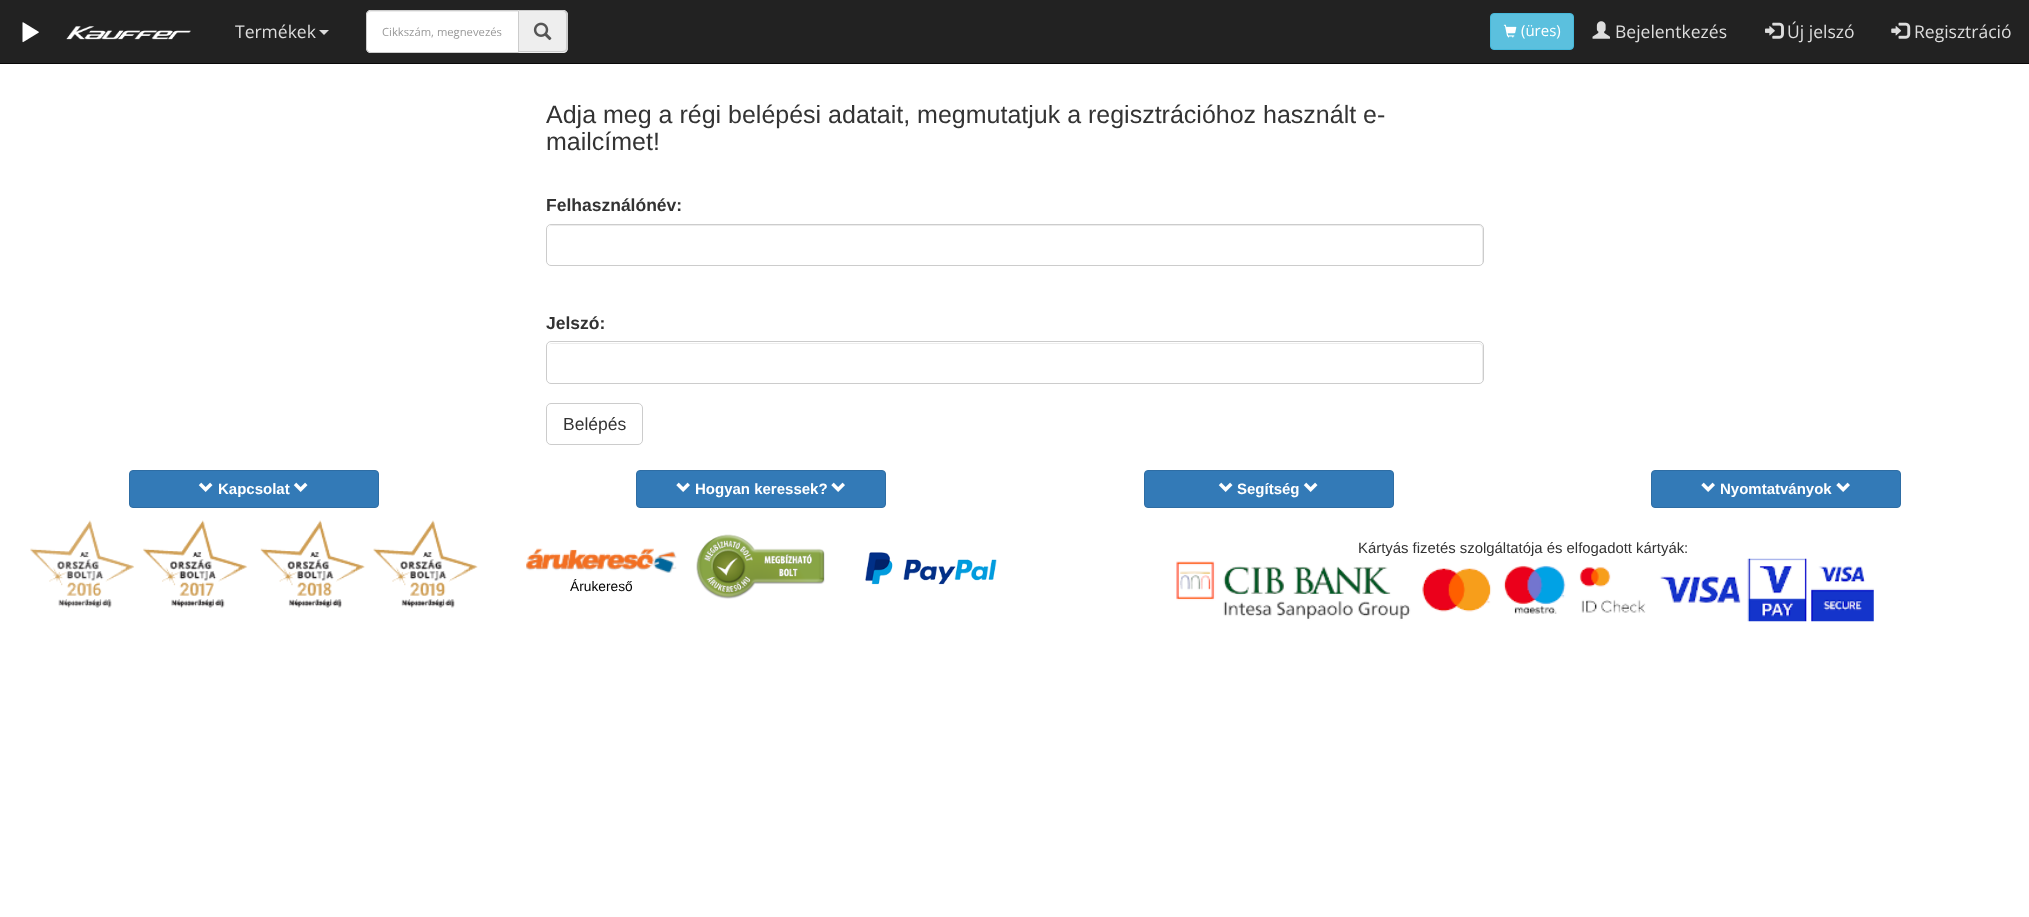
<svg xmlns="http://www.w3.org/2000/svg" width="2029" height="917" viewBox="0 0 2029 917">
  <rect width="100%" height="100%" fill="#fff"/>
  <path d="M0 0h2029v63H0z" fill="#222"/>
  <path d="M0 63h2029v1H0z" fill="#080808"/>
  <image x="22" y="22" width="17" height="21" href="img/1.png"/>
  <image x="66" y="26" width="125" height="14" href="img/2.png"/>
  <path d="M319 30H329L324 35Z" fill="#ddd"/>
  <path d="M371 10H519V53H371C368 53 366 51 366 48V15C366 12 368 10 371 10Z" fill="#fff"/>
  <path d="M371 12H518V11H372C369 11 368 13 368 16C368 14 369 12 371 12Z" fill="#ececec"/>
  <path d="M371 10.5H518.5V52.5H371C368.5 52.5 366.5 50.5 366.5 48V15C366.5 12.5 368.5 10.5 371 10.5Z" fill="none" stroke="#ccc"/>
  <path d="M519 10H563C566 10 568 12 568 15V48C568 51 566 53 563 53H519Z" fill="#eee"/>
  <path d="M519 10H562C565 10 568 12 568 15V48C568 50 565 52 562 52H519ZM519 11H562C565 11 566 13 566 15V48C566 50 565 51 562 51H519Z" fill="#ccc" fill-rule="evenodd"/>
  <image x="533" y="22" width="19" height="19" href="img/3.png"/>
  <rect x="1490.5" y="13.5" width="83" height="36" rx="3.5" fill="#5bc0de" stroke="#46b8da"/>
  <image x="1503" y="24" width="14" height="14" href="img/4.png"/>
  <image x="1592" y="21" width="18" height="18" href="img/5.png"/>
  <image x="1765" y="22" width="19" height="17" href="img/6.png"/>
  <image x="1891" y="22" width="20" height="17" href="img/7.png"/>
  <path d="M551 226H1479C1481 226 1482 228 1482 230V264C1483 263 1483 262 1483 261V229C1483 227 1481 225 1479 225H552C550 225 548 227 548 229V230C548 228 549 226 551 226Z" fill="#ececec"/>
  <rect x="546.5" y="224.5" width="937" height="41" rx="4.5" fill="none" stroke="#ccc"/>
  <path d="M551 344H1479C1481 344 1482 345 1482 348V382C1482 381 1483 380 1483 379V347C1483 345 1481 343 1479 343H552C550 343 548 345 548 347V348C548 345 549 344 551 344Z" fill="#ececec"/>
  <rect x="546.5" y="341.5" width="937" height="42" rx="4.5" fill="none" stroke="#ccc"/>
  <rect x="546.5" y="403.5" width="96" height="41" rx="4.5" fill="none" stroke="#ccc"/>
  <rect x="129.5" y="470.5" width="249" height="37" rx="3.5" fill="#337ab7" stroke="#2e6da4"/>
  <image x="198" y="482" width="15" height="10" href="img/8.png"/>
  <image x="293" y="482" width="15" height="10" href="img/8.png"/>
  <rect x="636.5" y="470.5" width="249" height="37" rx="3.5" fill="#337ab7" stroke="#2e6da4"/>
  <image x="676" y="482" width="14" height="10" href="img/9.png"/>
  <image x="831" y="482" width="14" height="10" href="img/9.png"/>
  <rect x="1144.5" y="470.5" width="249" height="37" rx="3.5" fill="#337ab7" stroke="#2e6da4"/>
  <image x="1218" y="482" width="15" height="10" href="img/8.png"/>
  <image x="1303" y="482" width="15" height="10" href="img/8.png"/>
  <rect x="1651.5" y="470.5" width="249" height="37" rx="3.5" fill="#337ab7" stroke="#2e6da4"/>
  <image x="1701" y="482" width="14" height="10" href="img/9.png"/>
  <image x="1836" y="482" width="14" height="10" href="img/9.png"/>
  <image x="30" y="520" width="448" height="88" href="img/10.png"/>
  <image x="696" y="534" width="129" height="65" href="img/11.png"/>
  <image x="1176" y="558" width="698" height="64" href="img/12.png"/>
  <image x="526" y="548" width="151" height="25" href="img/13.png"/>
  <image x="865" y="552" width="132" height="33" href="img/14.png"/>
  <text x="235" y="38" font-family="Open Sans" font-size="17.5" fill="#ddd">Termékek</text>
  <text x="382" y="36" font-family="Open Sans" font-size="11.25" fill="#999">Cikkszám, megnevezés</text>
  <text x="1521" y="36" font-family="Open Sans" font-size="15" fill="#fff">(üres)</text>
  <g font-family="Open Sans" font-size="17.5" fill="#ddd">
    <text x="1615" y="38">Bejelentkezés</text>
    <text x="1787" y="38">Új jelszó</text>
    <text x="1914" y="38">Regisztráció</text>
  </g>
  <g font-family="Liberation Sans" font-size="25" fill="#333">
    <text x="546" y="123">Adja meg a régi belépési adatait, megmutatjuk a regisztrációhoz használt e-</text>
    <text x="546" y="150">mailcímet!</text>
  </g>
  <g font-family="Liberation Sans" font-size="17.5" font-weight="bold" fill="#333">
    <text x="546" y="211">Felhasználónév:</text>
    <text x="546" y="329">Jelszó:</text>
  </g>
  <text x="563" y="430" font-family="Liberation Sans" font-size="17.5" fill="#333">Belépés</text>
  <g font-family="Liberation Sans" font-size="15" font-weight="bold" fill="#fff">
    <text x="218" y="494">Kapcsolat</text>
    <text x="695" y="494">Hogyan keressek?</text>
    <text x="1237" y="494">Segítség</text>
    <text x="1720" y="494">Nyomtatványok</text>
  </g>
  <text x="1358" y="553" font-family="Liberation Sans" font-size="14.9" fill="#333">Kártyás fizetés szolgáltatója és elfogadott kártyák:</text>
  <text x="570" y="591" font-family="Liberation Sans" font-size="13.75" fill="#000">Árukereső</text>
</svg>
